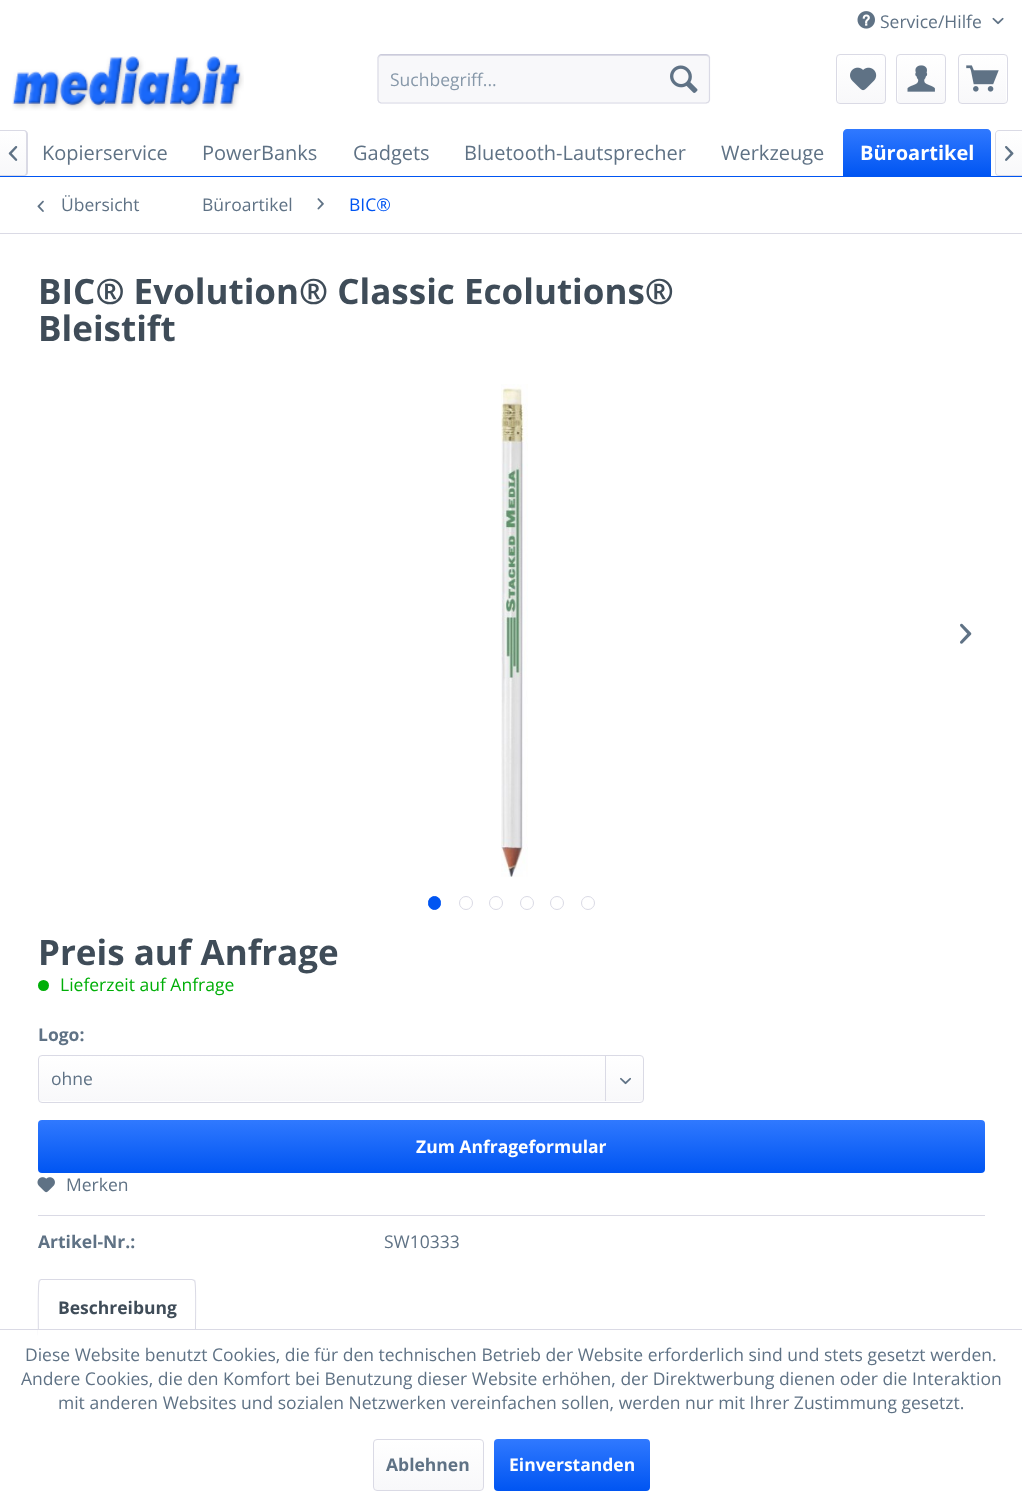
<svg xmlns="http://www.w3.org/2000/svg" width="1022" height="1503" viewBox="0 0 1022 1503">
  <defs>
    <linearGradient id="g1" gradientUnits="userSpaceOnUse" x1="861" y1="55" x2="861" y2="103"><stop offset="0" stop-color="#fff"/><stop offset="1" stop-color="#f8f8fa"/></linearGradient>
    <linearGradient id="g2" gradientUnits="userSpaceOnUse" x1="921" y1="55" x2="921" y2="103"><stop offset="0" stop-color="#fff"/><stop offset="1" stop-color="#f8f8fa"/></linearGradient>
    <linearGradient id="g3" gradientUnits="userSpaceOnUse" x1="983" y1="55" x2="983" y2="103"><stop offset="0" stop-color="#fff"/><stop offset="1" stop-color="#f8f8fa"/></linearGradient>
    <linearGradient id="g4" gradientUnits="userSpaceOnUse" x1="13" y1="131" x2="13" y2="175"><stop offset="0" stop-color="#fff"/><stop offset="1" stop-color="#f8f8fa"/></linearGradient>
    <linearGradient id="g5" gradientUnits="userSpaceOnUse" x1="917" y1="129" x2="917" y2="176"><stop offset="0" stop-color="#3079ff"/><stop offset="1" stop-color="#0055f2"/></linearGradient>
    <linearGradient id="g6" gradientUnits="userSpaceOnUse" x1="1009" y1="131" x2="1009" y2="175"><stop offset="0" stop-color="#fff"/><stop offset="1" stop-color="#f8f8fa"/></linearGradient>
    <linearGradient id="g7" gradientUnits="userSpaceOnUse" x1="341" y1="1056" x2="341" y2="1101"><stop offset="0" stop-color="#fff"/><stop offset="1" stop-color="#f8f8fa"/></linearGradient>
    <linearGradient id="g8" gradientUnits="userSpaceOnUse" x1="511" y1="1120" x2="511" y2="1173"><stop offset="0" stop-color="#3079ff"/><stop offset="1" stop-color="#0055f2"/></linearGradient>
    <linearGradient id="g9" gradientUnits="userSpaceOnUse" x1="428" y1="1440" x2="428" y2="1490"><stop offset="0" stop-color="#fff"/><stop offset="1" stop-color="#f8f8fa"/></linearGradient>
    <linearGradient id="g10" gradientUnits="userSpaceOnUse" x1="572" y1="1439" x2="572" y2="1491"><stop offset="0" stop-color="#3079ff"/><stop offset="1" stop-color="#0055f2"/></linearGradient>
  </defs>
  <rect width="100%" height="100%" fill="#fff"/>
  <image x="857" y="11" width="18" height="18" href="img/1.png"/>
  <image x="992" y="17" width="12" height="8" href="img/2.png"/>
  <image x="12" y="56" width="232" height="55" href="img/3.png"/>
  <rect x="378" y="54" width="332" height="50" rx="4" fill="#f8f8fa"/>
  <path d="M381 56H706C708 56 709 57 709 59V58C709 56 708 55 706 55H382C380 55 379 56 379 58V59C379 57 380 56 381 56Z" fill="#dadae5"/>
  <path d="M379 55.5L381 54.5H706L708.5 55.5" fill="none" stroke="#cbcbdb" stroke-width="1.2"/>
  <path d="M708.5 55.5L709.5 57.5V100L708.5 102L706 103H381L379 102L378 100V57.5L379 55.5" fill="none" stroke="#dadae5" stroke-width="1.2"/>
  <image x="670" y="65" width="28" height="28" href="img/4.png"/>
  <rect x="838" y="55" width="47" height="48" rx="2.5" fill="url(#g1)"/>
  <rect x="836.5" y="54.5" width="49" height="49" rx="3.5" fill="none" stroke="#dadae5"/>
  <image x="850" y="67" width="27" height="24" href="img/5.png"/>
  <rect x="898" y="55" width="47" height="48" rx="2.5" fill="url(#g2)"/>
  <rect x="896.5" y="54.5" width="49" height="49" rx="3.5" fill="none" stroke="#dadae5"/>
  <image x="907" y="65" width="28" height="27" href="img/6.png"/>
  <rect x="959" y="55" width="47" height="48" rx="2.5" fill="url(#g3)"/>
  <rect x="958.5" y="54.5" width="49" height="49" rx="3.5" fill="none" stroke="#dadae5"/>
  <image x="966" y="65" width="33" height="27" href="img/7.png"/>
  <path d="M0 176h1022v1H0z" fill="#0055f2"/>
  <path d="M0 131H23.5C25 131 26 132 26 133.5V172.5C26 174 25 175 23.5 175H0Z" fill="url(#g4)"/>
  <path d="M0 130H24C26 130 28 132 28 134V172C28 175 26 176 24 176H0ZM0 131H24C25 131 26 132 26 134V172C26 174 25 175 24 175H0Z" fill="#dadae5" fill-rule="evenodd"/>
  <image x="8" y="146" width="10" height="15" href="img/8.png"/>
  <path d="M847 129H987C989 129 991 131 991 133V176H843V133C843 131 845 129 847 129Z" fill="url(#g5)"/>
  <path d="M998.5 131H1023V175H998.5C997 175 996 174 996 172.5V133.5C996 132 997 131 998.5 131Z" fill="url(#g6)"/>
  <path d="M999 130H1022V176H999C997 176 995 175 995 172V134C995 132 997 130 999 130ZM999 131H1022V175H999C997 175 996 174 996 172V134C996 132 997 131 999 131Z" fill="#dadae5" fill-rule="evenodd"/>
  <image x="1005" y="146" width="9" height="15" href="img/9.png"/>
  <path d="M0 233h1022v1H0z" fill="#dadae5"/>
  <image x="37" y="200" width="7" height="12" href="img/10.png"/>
  <image x="317" y="198" width="7" height="12" href="img/11.png"/>
  <image x="501" y="384" width="27" height="493" href="img/12.png"/>
  <image x="960" y="623" width="12" height="21" href="img/13.png"/>
  <rect x="428.5" y="896.5" width="12" height="13" rx="6" fill="#0055f2" stroke="#0055f2"/>
  <circle cx="466" cy="903" r="6.5" fill="none" stroke="#dadae5"/>
  <circle cx="496" cy="903" r="6.5" fill="none" stroke="#dadae5"/>
  <circle cx="527" cy="903" r="6.5" fill="none" stroke="#dadae5"/>
  <circle cx="557" cy="903" r="6.5" fill="none" stroke="#dadae5"/>
  <circle cx="588" cy="903" r="6.5" fill="none" stroke="#dadae5"/>
  <circle cx="43.5" cy="985.5" r="5.5" fill="#00af08"/>
  <rect x="39" y="1056" width="604" height="45" rx="2.5" fill="url(#g7)"/>
  <rect x="38.5" y="1055.5" width="605" height="47" rx="3.5" fill="none" stroke="#dadae5"/>
  <path d="M605 1056h1v45H605z" fill="#dadae5"/>
  <image x="620" y="1077" width="11" height="8" href="img/14.png"/>
  <rect x="38" y="1120" width="947" height="53" rx="4" fill="url(#g8)"/>
  <path d="M38 1215h947v1H38z" fill="#dadae5"/>
  <image x="37" y="1177" width="18" height="16" href="img/15.png"/>
  <path d="M41 1279L39 1280L40 1281L41 1280H192L194 1281L195 1280L192 1279Z" fill="#dadae5"/>
  <path d="M196 1336C196 1330 197 1281 195 1280L194 1281C196 1282 195 1329 195 1335Z" fill="#dadae5"/>
  <path d="M39 1280C37 1282 38 1329 38 1336L39 1335C39 1329 38 1282 40 1281Z" fill="#dadae5"/>
  <path d="M38 1330h158v6H38z" fill="#fff"/>
  <path d="M0 1329h1022v1H0z" fill="#dadae5"/>
  <rect x="374" y="1440" width="109" height="50" rx="2.5" fill="url(#g9)"/>
  <rect x="373.5" y="1439.5" width="110" height="51" rx="3.5" fill="none" stroke="#dadae5"/>
  <rect x="494" y="1439" width="156" height="52" rx="4" fill="url(#g10)"/>
  <text x="880" y="28" font-family="Open Sans" font-size="17.5" fill="#5f7285">Service/Hilfe</text>
  <text x="390" y="86" font-family="Open Sans" font-size="17.5" fill="#8798a9">Suchbegriff...</text>
  <g font-family="Open Sans" font-size="20" fill="#5f7285">
    <text x="42" y="160">Kopierservice</text>
    <text x="202" y="160">PowerBanks</text>
    <text x="353" y="160">Gadgets</text>
    <text x="464" y="160">Bluetooth-Lautsprecher</text>
    <text x="721" y="160">Werkzeuge</text>
  </g>
  <text x="860" y="160" font-family="Open Sans" font-size="20" font-weight="bold" fill="#fff">Büroartikel</text>
  <g font-family="Open Sans" font-size="17.5" fill="#5f7285">
    <text x="61" y="211">Übersicht</text>
    <text x="202" y="211">Büroartikel</text>
  </g>
  <text x="349" y="211" font-family="Open Sans" font-size="17.5" fill="#0055f2">BIC®</text>
  <g font-family="Open Sans" font-size="35" font-weight="bold" fill="#3f4c58">
    <text x="38" y="304">BIC® Evolution® Classic Ecolutions®</text>
    <text x="38" y="341">Bleistift</text>
    <text x="38" y="965">Preis auf Anfrage</text>
  </g>
  <text x="60" y="991" font-family="Open Sans" font-size="17.5" fill="#00af08">Lieferzeit auf Anfrage</text>
  <text x="38" y="1041" font-family="Open Sans" font-size="17.5" font-weight="bold" fill="#5f7285">Logo:</text>
  <text x="51" y="1085" font-family="Open Sans" font-size="17.5" fill="#5f7285">ohne</text>
  <text x="416" y="1153" font-family="Open Sans" font-size="17.5" font-weight="bold" fill="#fff">Zum Anfrageformular</text>
  <text x="66" y="1191" font-family="Open Sans" font-size="17.5" fill="#5f7285">Merken</text>
  <text x="38" y="1248" font-family="Open Sans" font-size="17.5" font-weight="bold" fill="#5f7285">Artikel-Nr.:</text>
  <text x="384" y="1248" font-family="Open Sans" font-size="17.5" fill="#5f7285">SW10333</text>
  <text x="58" y="1314" font-family="Open Sans" font-size="17.5" font-weight="bold" fill="#3f4c58">Beschreibung</text>
  <g font-family="Open Sans" font-size="17.5" fill="#5f7285">
    <text x="25" y="1361">Diese Website benutzt Cookies, die für den technischen Betrieb der Website erforderlich sind und stets gesetzt werden.</text>
    <text x="21" y="1385">Andere Cookies, die den Komfort bei Benutzung dieser Website erhöhen, der Direktwerbung dienen oder die Interaktion</text>
    <text x="58" y="1409">mit anderen Websites und sozialen Netzwerken vereinfachen sollen, werden nur mit Ihrer Zustimmung gesetzt.</text>
  </g>
  <text x="386" y="1471" font-family="Open Sans" font-size="17.5" font-weight="bold" fill="#5f7285">Ablehnen</text>
  <text x="509" y="1471" font-family="Open Sans" font-size="17.5" font-weight="bold" fill="#fff">Einverstanden</text>
</svg>
